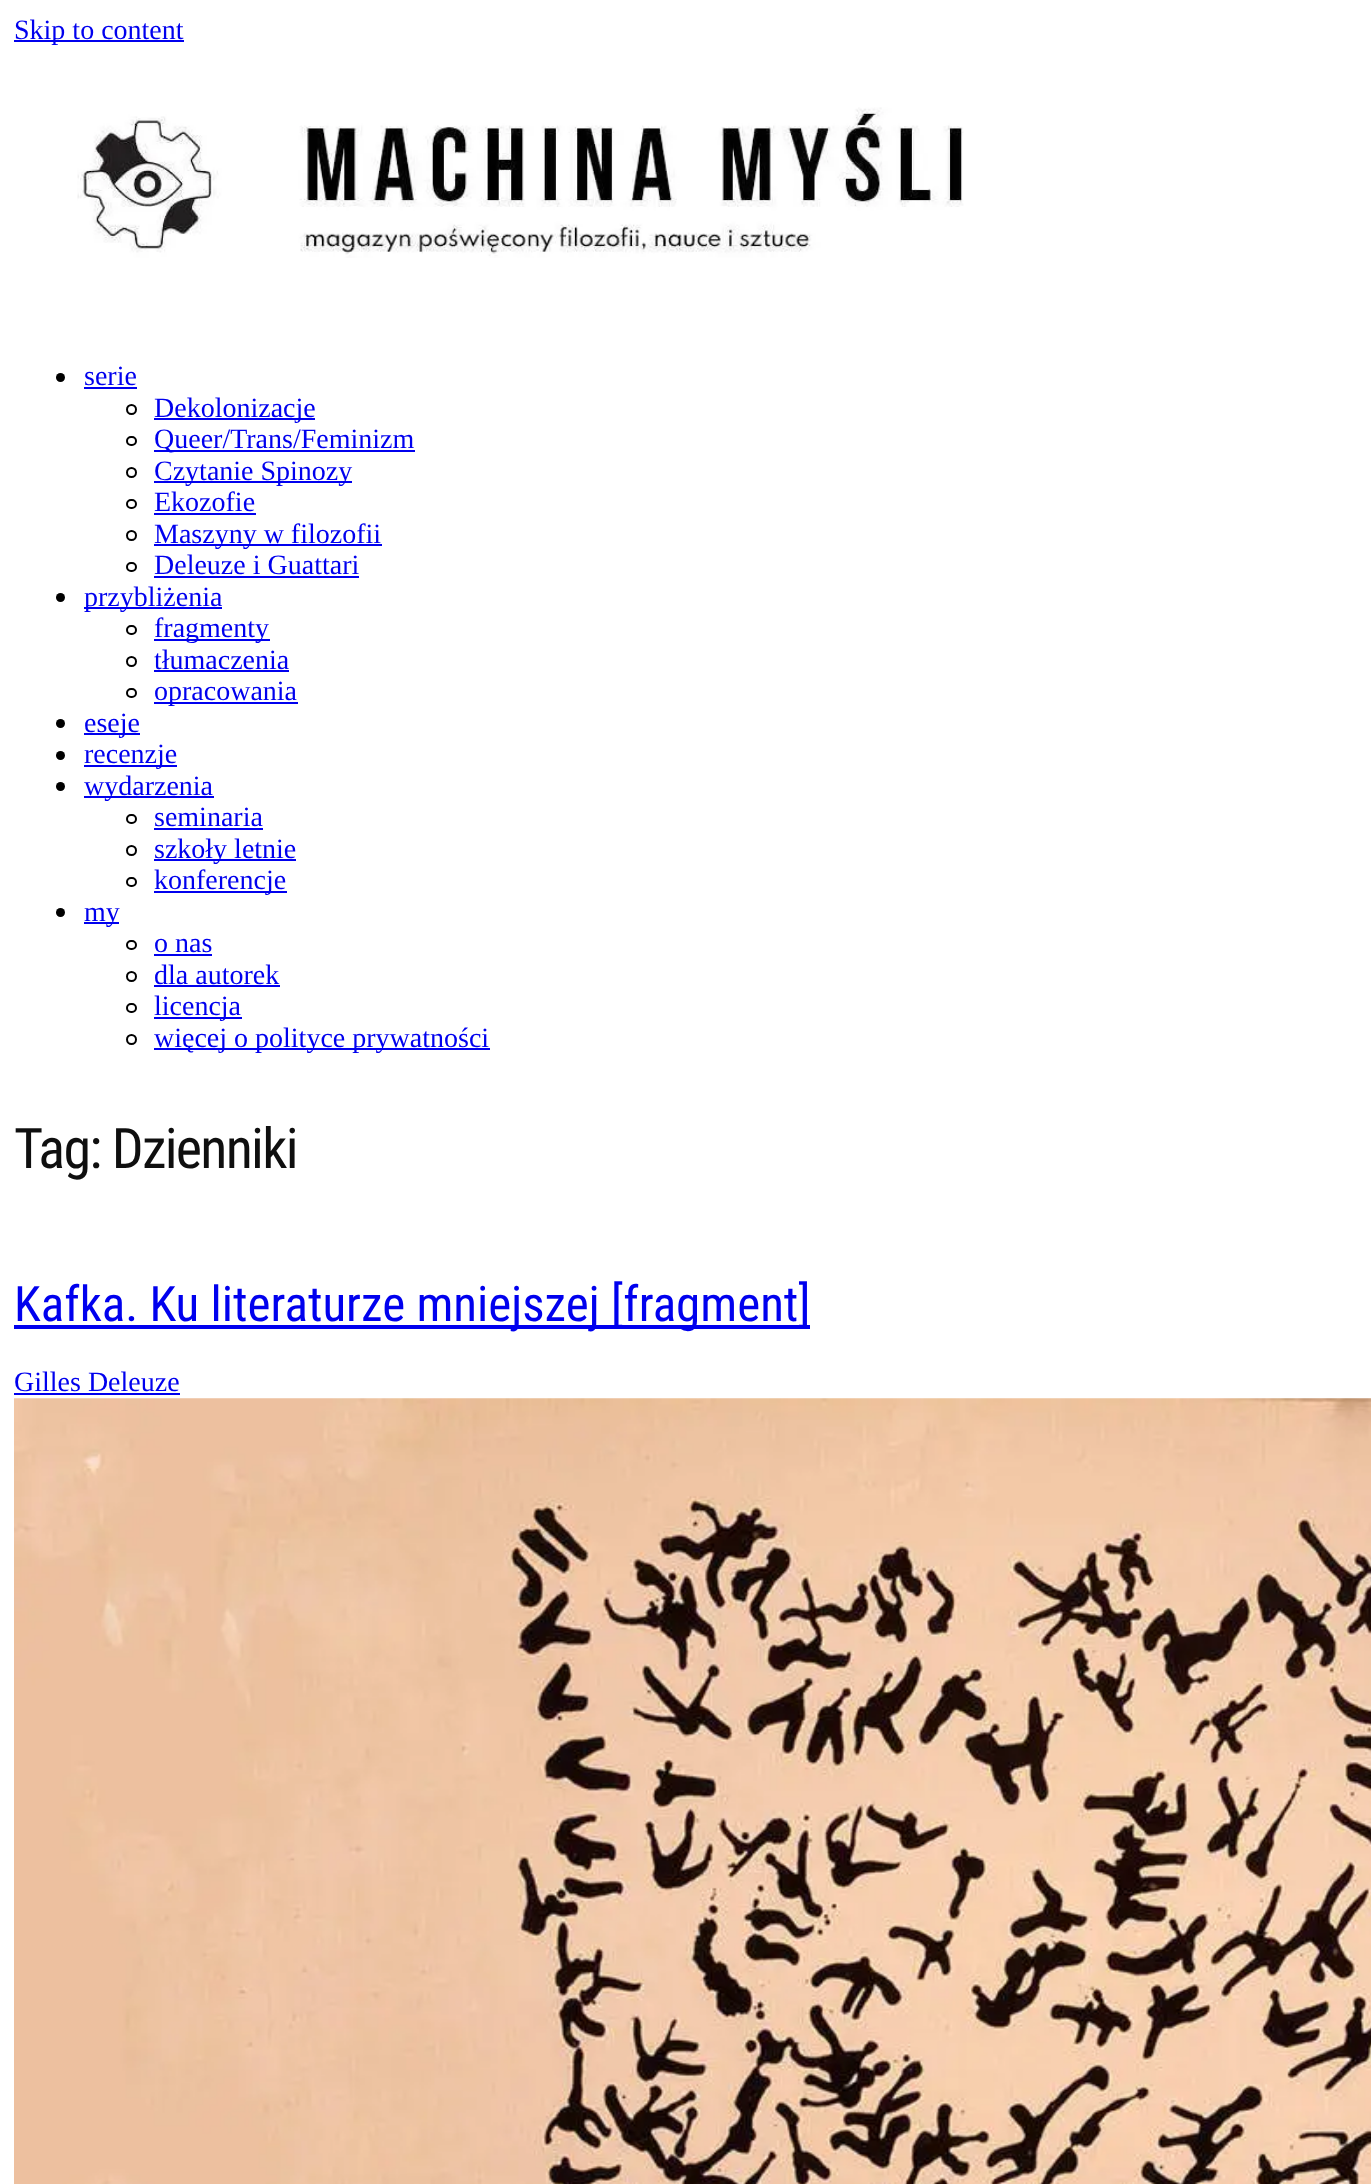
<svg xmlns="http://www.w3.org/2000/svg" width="1371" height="2184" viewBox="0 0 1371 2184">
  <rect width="100%" height="100%" fill="#fff"/>
  <path d="M14 40h170v2H14z" fill="#00e"/>
  <image x="77" y="107" width="887" height="151" href="img/1.png"/>
  <circle cx="60.5" cy="377.5" r="4.5" fill="#000"/>
  <path d="M84 387h53v2H84z" fill="#00e"/>
  <circle cx="131.5" cy="409.5" r="4.5" fill="none" stroke="#000" stroke-width="2"/>
  <path d="M154 418h161v2H154z" fill="#00e"/>
  <rect x="127" y="437" width="9" height="8" rx="4" fill="none" stroke="#000" stroke-width="2"/>
  <path d="M154 450h261v2H154z" fill="#00e"/>
  <circle cx="131.5" cy="472.5" r="4.5" fill="none" stroke="#000" stroke-width="2"/>
  <path d="M154 481h198v2H154z" fill="#00e"/>
  <rect x="127" y="500" width="9" height="8" rx="4" fill="none" stroke="#000" stroke-width="2"/>
  <path d="M154 513h102v2H154z" fill="#00e"/>
  <circle cx="131.5" cy="535.5" r="4.5" fill="none" stroke="#000" stroke-width="2"/>
  <path d="M154 544h228v2H154z" fill="#00e"/>
  <rect x="127" y="563" width="9" height="8" rx="4" fill="none" stroke="#000" stroke-width="2"/>
  <path d="M154 576h205v2H154z" fill="#00e"/>
  <circle cx="60.5" cy="597.5" r="4.5" fill="#000"/>
  <path d="M84 607h138v2H84z" fill="#00e"/>
  <rect x="127" y="626" width="9" height="8" rx="4" fill="none" stroke="#000" stroke-width="2"/>
  <path d="M154 639h116v2H154z" fill="#00e"/>
  <circle cx="131.5" cy="661.5" r="4.5" fill="none" stroke="#000" stroke-width="2"/>
  <path d="M154 670h135v2H154z" fill="#00e"/>
  <rect x="127" y="689" width="9" height="8" rx="4" fill="none" stroke="#000" stroke-width="2"/>
  <path d="M154 702h144v2H154z" fill="#00e"/>
  <circle cx="60.5" cy="723.5" r="4.5" fill="#000"/>
  <path d="M84 733h56v2H84z" fill="#00e"/>
  <circle cx="60.5" cy="755.5" r="4.5" fill="#000"/>
  <path d="M84 765h93v2H84z" fill="#00e"/>
  <circle cx="60.5" cy="786.5" r="4.5" fill="#000"/>
  <path d="M84 796h130v2H84z" fill="#00e"/>
  <rect x="127" y="815" width="9" height="8" rx="4" fill="none" stroke="#000" stroke-width="2"/>
  <path d="M154 828h109v2H154z" fill="#00e"/>
  <circle cx="131.5" cy="850.5" r="4.5" fill="none" stroke="#000" stroke-width="2"/>
  <path d="M154 859h142v2H154z" fill="#00e"/>
  <rect x="127" y="878" width="9" height="8" rx="4" fill="none" stroke="#000" stroke-width="2"/>
  <path d="M154 891h133v2H154z" fill="#00e"/>
  <circle cx="60.5" cy="912.5" r="4.5" fill="#000"/>
  <path d="M84 922h35v2H84z" fill="#00e"/>
  <rect x="127" y="941" width="9" height="8" rx="4" fill="none" stroke="#000" stroke-width="2"/>
  <path d="M154 954h58v2H154z" fill="#00e"/>
  <circle cx="131.5" cy="976.5" r="4.5" fill="none" stroke="#000" stroke-width="2"/>
  <path d="M154 985h126v2H154z" fill="#00e"/>
  <rect x="127" y="1004" width="9" height="8" rx="4" fill="none" stroke="#000" stroke-width="2"/>
  <path d="M154 1017h88v2H154z" fill="#00e"/>
  <circle cx="131.5" cy="1039.5" r="4.5" fill="none" stroke="#000" stroke-width="2"/>
  <path d="M154 1048h336v2H154z" fill="#00e"/>
  <path d="M14 1325h796v4H14z" fill="#00e"/>
  <path d="M14 1393h166v2H14z" fill="#00e"/>
  <image x="14" y="1398" width="1357" height="786" href="img/2.png"/>
  <g font-family="Liberation Serif" font-size="28" fill="#00e">
    <text x="14" y="39">Skip to content</text>
    <text x="84" y="385">serie</text>
    <text x="154" y="417">Dekolonizacje</text>
    <text x="154" y="448">Queer/Trans/Feminizm</text>
    <text x="154" y="480">Czytanie Spinozy</text>
    <text x="154" y="511">Ekozofie</text>
    <text x="154" y="543">Maszyny w filozofii</text>
    <text x="154" y="574">Deleuze i Guattari</text>
    <text x="84" y="606">przybliżenia</text>
    <text x="154" y="637">fragmenty</text>
    <text x="154" y="669">tłumaczenia</text>
    <text x="154" y="700">opracowania</text>
    <text x="84" y="732">eseje</text>
    <text x="84" y="763">recenzje</text>
    <text x="84" y="795">wydarzenia</text>
    <text x="154" y="826">seminaria</text>
    <text x="154" y="858">szkoły letnie</text>
    <text x="154" y="889">konferencje</text>
    <text x="84" y="921">my</text>
    <text x="154" y="952">o nas</text>
    <text x="154" y="984">dla autorek</text>
    <text x="154" y="1015">licencja</text>
    <text x="154" y="1047">więcej o polityce prywatności</text>
  </g>
  <text x="14" y="1168" font-family="Roboto Condensed" font-size="56" letter-spacing="-1.75" fill="#0f0f0f">Tag: Dzienniki</text>
  <text x="14" y="1321" font-family="Roboto Condensed" font-size="49" fill="#00e">Kafka. Ku literaturze mniejszej [fragment]</text>
  <text x="14" y="1391" font-family="Liberation Serif" font-size="28" fill="#00e">Gilles Deleuze</text>
</svg>
